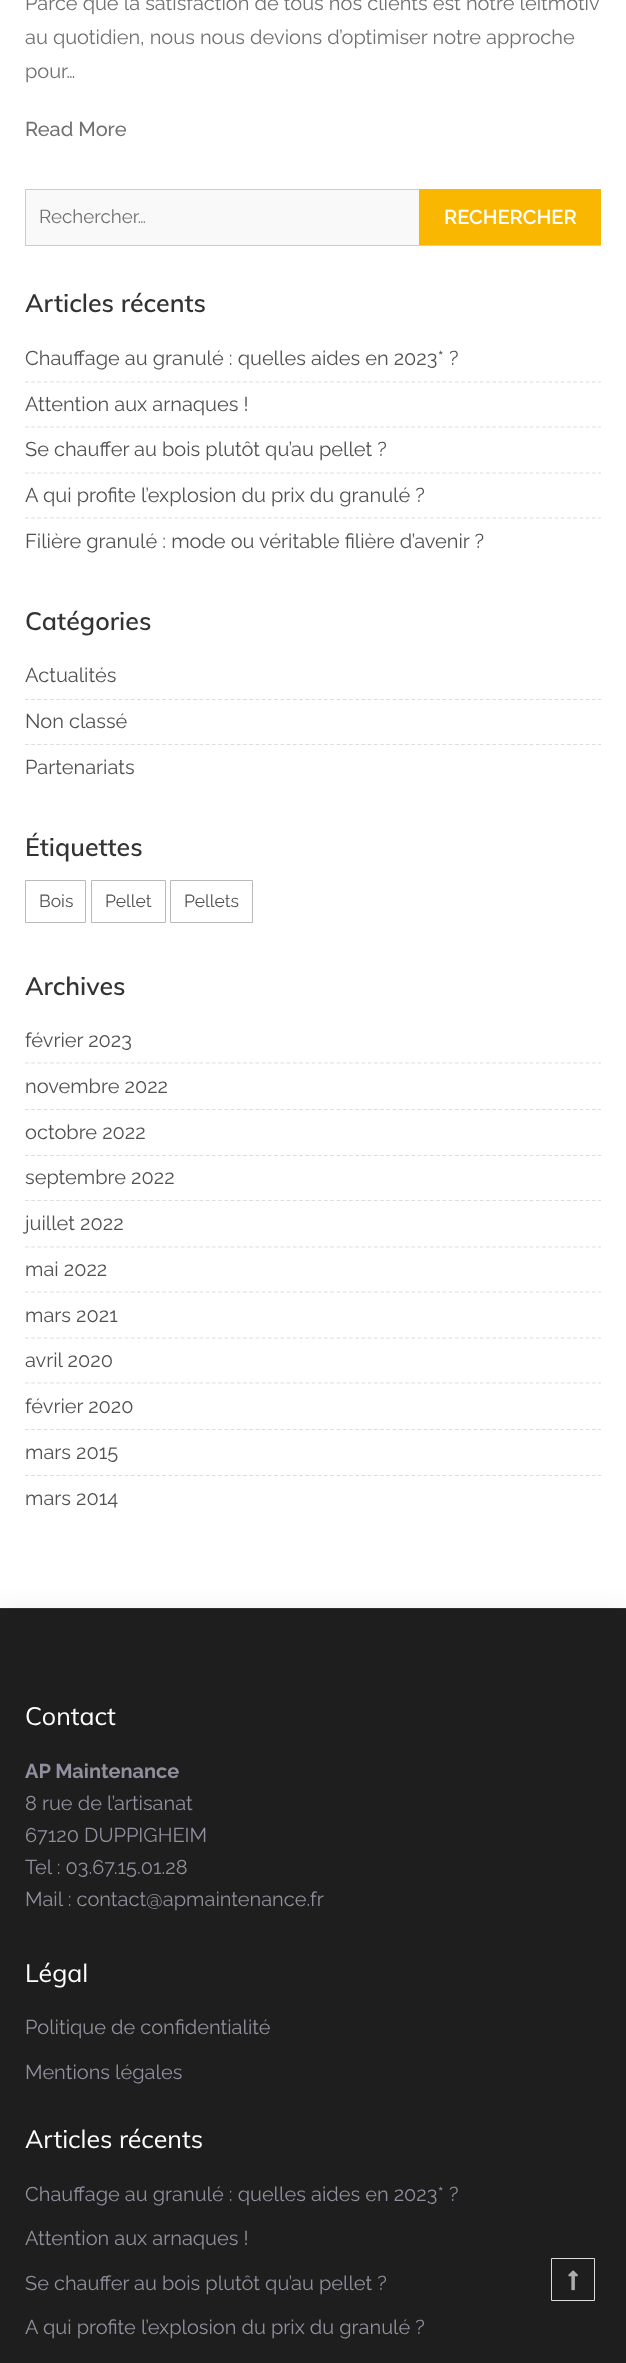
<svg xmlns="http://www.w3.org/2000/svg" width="626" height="2363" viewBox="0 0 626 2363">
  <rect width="100%" height="100%" fill="#fff"/>
  <path d="M26 190h393v55H26z" fill="#f9f9f9"/>
  <path d="M25.5 189.5h575v56H25.5z" fill="none" stroke="#ccc"/>
  <path d="M419 189h182v56H419z" fill="#fab702"/>
  <path d="M25 382H601" fill="none" stroke="#ddd" stroke-width="1.2" stroke-dasharray="3.75 2.48"/>
  <path d="M25 427H601" fill="none" stroke="#ddd" stroke-width="1.2" stroke-dasharray="3.75 2.48"/>
  <path d="M25 473H601" fill="none" stroke="#ddd" stroke-width="1.2" stroke-dasharray="3.75 2.48"/>
  <path d="M25 518H601" fill="none" stroke="#ddd" stroke-width="1.2" stroke-dasharray="3.75 2.48"/>
  <path d="M25 699.5H601" fill="none" stroke="#ddd" stroke-width="1.2" stroke-dasharray="3.75 2.48"/>
  <path d="M25 744.5H601" fill="none" stroke="#ddd" stroke-width="1.2" stroke-dasharray="3.75 2.48"/>
  <path d="M25.5 880.5h60v42H25.5z" fill="none" stroke="#bababa"/>
  <path d="M91.5 880.5h74v42H91.5z" fill="none" stroke="#bababa"/>
  <path d="M170.5 880.5h82v42H170.5z" fill="none" stroke="#bababa"/>
  <path d="M25 1063H601" fill="none" stroke="#ddd" stroke-width="1.2" stroke-dasharray="3.75 2.48"/>
  <path d="M25 1109.5H601" fill="none" stroke="#ddd" stroke-width="1.2" stroke-dasharray="3.75 2.48"/>
  <path d="M25 1155.5H601" fill="none" stroke="#ddd" stroke-width="1.2" stroke-dasharray="3.75 2.48"/>
  <path d="M25 1200.5H601" fill="none" stroke="#ddd" stroke-width="1.2" stroke-dasharray="3.75 2.48"/>
  <path d="M25 1247H601" fill="none" stroke="#ddd" stroke-width="1.2" stroke-dasharray="3.75 2.48"/>
  <path d="M25 1292H601" fill="none" stroke="#ddd" stroke-width="1.2" stroke-dasharray="3.75 2.48"/>
  <path d="M25 1338H601" fill="none" stroke="#ddd" stroke-width="1.2" stroke-dasharray="3.75 2.48"/>
  <path d="M25 1383H601" fill="none" stroke="#ddd" stroke-width="1.2" stroke-dasharray="3.75 2.48"/>
  <path d="M25 1429.5H601" fill="none" stroke="#ddd" stroke-width="1.2" stroke-dasharray="3.75 2.48"/>
  <path d="M25 1475.5H601" fill="none" stroke="#ddd" stroke-width="1.2" stroke-dasharray="3.75 2.48"/>
  <path d="M0 1608h626v1H0z" fill="#333"/>
  <path d="M0 1608h626v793H0z" fill="#0000000f" filter="blur(12.5px)"/>
  <path d="M0 1609h626v754H0z" fill="#1e1e1e"/>
  <path d="M551.5 2258.5h43v42H551.5z" fill="none" stroke="#ddd"/>
  <image x="568" y="2270" width="10" height="21" href="img/1.png"/>
  <g font-family="Raleway" font-size="20" fill="#707070">
    <text x="25" y="10">Parce que la satisfaction de tous nos clients est notre leitmotiv</text>
    <text x="25" y="44">au quotidien, nous nous devions d’optimiser notre approche</text>
    <text x="25" y="78">pour…</text>
  </g>
  <text x="25" y="136" font-family="Raleway" font-size="20" font-weight="500" fill="#707070">Read More</text>
  <text x="39" y="223" font-family="Raleway" font-size="18.75" fill="#707070">Rechercher…</text>
  <text x="444" y="224" font-family="Raleway" font-size="20" font-weight="600" fill="#fff">RECHERCHER</text>
  <text x="25" y="312" font-family="Muli" font-size="25" font-weight="600" fill="#333">Articles récents</text>
  <g font-family="Raleway" font-size="20" fill="#515151">
    <text x="25" y="365">Chauffage au granulé : quelles aides en 2023* ?</text>
    <text x="25" y="411">Attention aux arnaques !</text>
    <text x="25" y="456">Se chauffer au bois plutôt qu’au pellet ?</text>
    <text x="25" y="502">A qui profite l’explosion du prix du granulé ?</text>
    <text x="25" y="548">Filière granulé : mode ou véritable filière d’avenir ?</text>
  </g>
  <text x="25" y="630" font-family="Muli" font-size="25" font-weight="600" fill="#333">Catégories</text>
  <g font-family="Raleway" font-size="20" fill="#515151">
    <text x="25" y="682">Actualités</text>
    <text x="25" y="728">Non classé</text>
    <text x="25" y="774">Partenariats</text>
  </g>
  <text x="25" y="856" font-family="Muli" font-size="25" font-weight="600" fill="#333">Étiquettes</text>
  <g font-family="Raleway" font-size="17.5" fill="#515151">
    <text x="39" y="907">Bois</text>
    <text x="105" y="907">Pellet</text>
    <text x="184" y="907">Pellets</text>
  </g>
  <text x="25" y="995" font-family="Muli" font-size="25" font-weight="600" fill="#333">Archives</text>
  <g font-family="Raleway" font-size="20" fill="#515151">
    <text x="25" y="1047">février 2023</text>
    <text x="25" y="1093">novembre 2022</text>
    <text x="25" y="1139">octobre 2022</text>
    <text x="25" y="1184">septembre 2022</text>
    <text x="25" y="1230">juillet 2022</text>
    <text x="25" y="1276">mai 2022</text>
    <text x="25" y="1322">mars 2021</text>
    <text x="25" y="1367">avril 2020</text>
    <text x="25" y="1413">février 2020</text>
    <text x="25" y="1459">mars 2015</text>
    <text x="25" y="1505">mars 2014</text>
  </g>
  <text x="25" y="1725" font-family="Muli" font-size="25" fill="#fff">Contact</text>
  <text x="25" y="1778" font-family="Raleway" font-size="20" font-weight="bold" fill="#918f9d">AP Maintenance</text>
  <g font-family="Raleway" font-size="20" fill="#918f9d">
    <text x="25" y="1810">8 rue de l’artisanat</text>
    <text x="25" y="1842">67120 DUPPIGHEIM</text>
    <text x="25" y="1874">Tel : 03.67.15.01.28</text>
    <text x="25" y="1906">Mail : contact@apmaintenance.fr</text>
  </g>
  <text x="25" y="1982" font-family="Muli" font-size="25" fill="#fff">Légal</text>
  <g font-family="Raleway" font-size="20" fill="#918f9d">
    <text x="25" y="2034">Politique de confidentialité</text>
    <text x="25" y="2079">Mentions légales</text>
  </g>
  <text x="25" y="2148" font-family="Muli" font-size="25" fill="#fff">Articles récents</text>
  <g font-family="Raleway" font-size="20" fill="#918f9d">
    <text x="25" y="2201">Chauffage au granulé : quelles aides en 2023* ?</text>
    <text x="25" y="2245">Attention aux arnaques !</text>
    <text x="25" y="2290">Se chauffer au bois plutôt qu’au pellet ?</text>
    <text x="25" y="2334">A qui profite l’explosion du prix du granulé ?</text>
  </g>
</svg>
